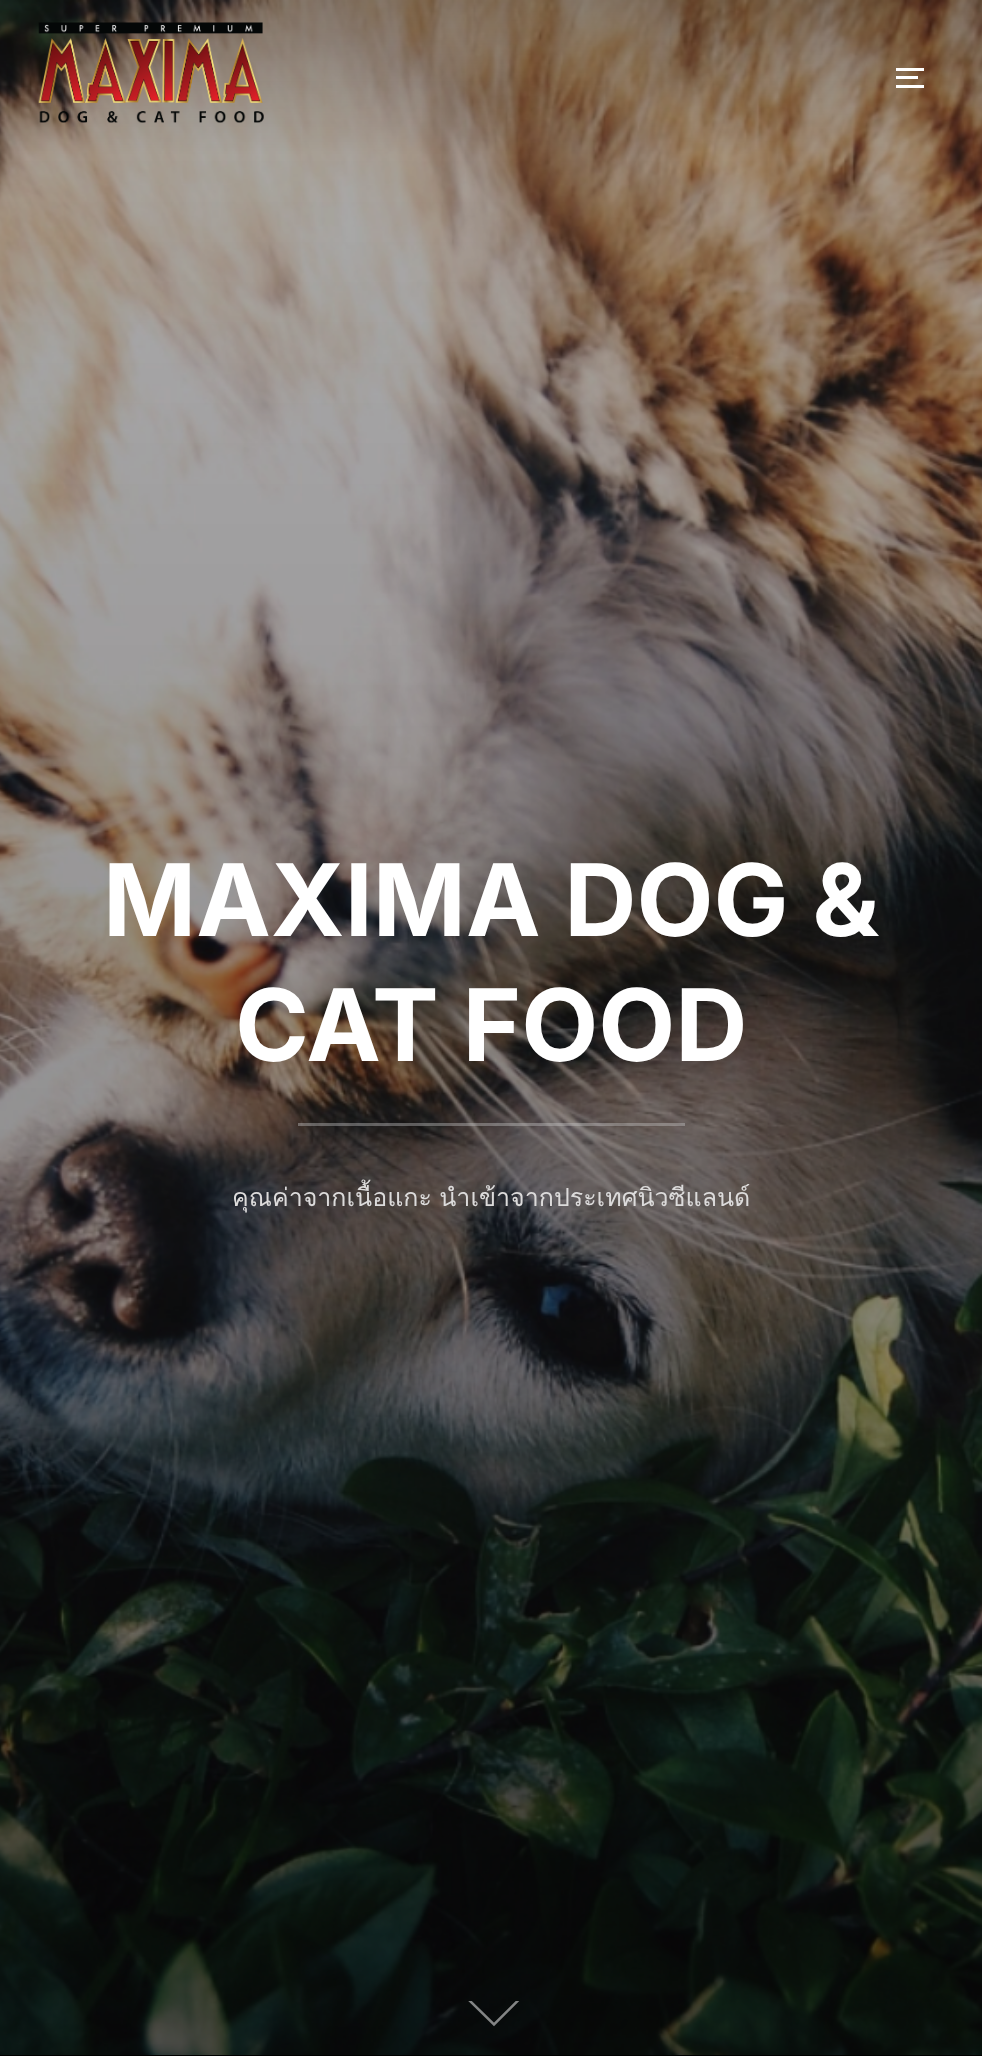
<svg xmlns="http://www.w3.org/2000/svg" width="982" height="2056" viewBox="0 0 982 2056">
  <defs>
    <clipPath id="clip1"><path d="M456 2001h70v30H456z"/></clipPath>
  </defs>
  <rect width="100%" height="100%" fill="#000"/>
  <image x="0" y="0" width="982" height="2055" href="img/2.png"/>
  <image x="38" y="22" width="226" height="101" href="img/1.png"/>
  <path d="M896 68h28v3H896z" fill="#fff"/>
  <path d="M896 76h22v3H896z" fill="#fff"/>
  <path d="M896 85h28v3H896z" fill="#fff"/>
  <path d="M298 1123h387v3H298z" fill="#c9c9c966"/>
  <g clip-path="url(#clip1)">
    <path d="M494 1975.5L518.5 2000L494 2024.5L469 2000Z" fill="none" stroke="#ffffff80" stroke-width="2.5"/>
  </g>
  <g font-family="Inter" font-size="100" font-weight="bold" fill="#fff">
    <text x="103" y="936">MAXIMA DOG &amp;</text>
    <text x="235" y="1061">CAT FOOD</text>
  </g>
  <text x="232" y="1206" word-spacing="-1" font-family="Loma" font-size="25" fill="#dcdbdb">คุณค่าจากเนื้อแกะ นำเข้าจากประเทศนิวซีแลนด์</text>
</svg>
